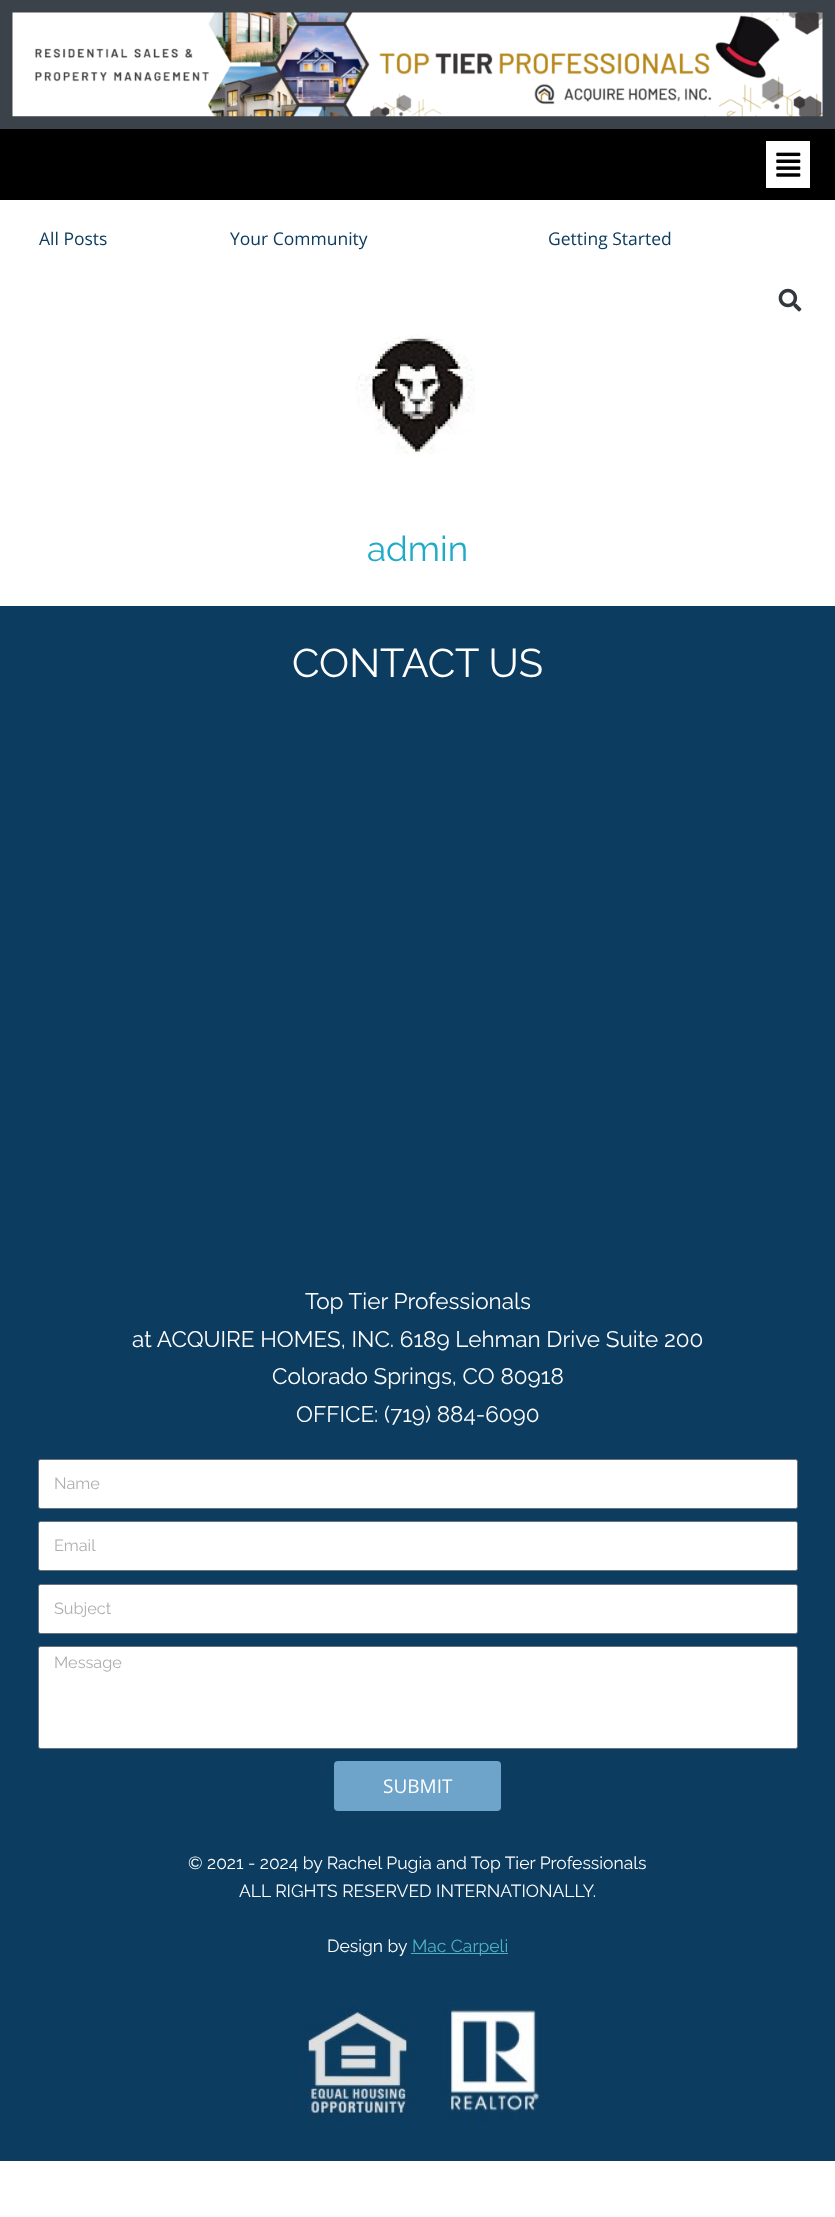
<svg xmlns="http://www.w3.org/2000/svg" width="835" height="2217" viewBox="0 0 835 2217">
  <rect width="100%" height="100%" fill="#fff"/>
  <path d="M0 0h835v129H0z" fill="#3c424a"/>
  <image x="12" y="12" width="811" height="105" href="img/1.png"/>
  <path d="M0 129h835v71H0z" fill="#000"/>
  <path d="M766 141h44v47H766z" fill="#fff"/>
  <image x="776" y="152" width="25" height="25" href="img/2.png"/>
  <image x="778" y="288" width="24" height="24" href="img/3.png"/>
  <image x="355" y="334" width="120" height="120" href="img/4.png"/>
  <path d="M0 606h835v1555H0z" fill="#0c3c60"/>
  <rect x="38.5" y="1459.5" width="759" height="49" rx="2" fill="#fff" stroke="#69727d"/>
  <rect x="38.5" y="1521.5" width="759" height="49" rx="2" fill="#fff" stroke="#69727d"/>
  <rect x="38.5" y="1584.5" width="759" height="49" rx="2" fill="#fff" stroke="#69727d"/>
  <rect x="38.5" y="1646.5" width="759" height="102" rx="2" fill="#fff" stroke="#69727d"/>
  <rect x="334" y="1761" width="167" height="50" rx="4" fill="#6ea4ca"/>
  <path d="M411 1953h97v1H411z" fill="#4fb0c6"/>
  <image x="297" y="2004" width="249" height="120" href="img/5.png"/>
  <g font-family="Open Sans" font-size="17.5" fill="#0c3c60">
    <text x="39" y="245">All Posts</text>
    <text x="230" y="245">Your Community</text>
    <text x="548" y="245">Getting Started</text>
  </g>
  <text x="367" y="561" font-family="Raleway" font-size="35" fill="#1eabc7">admin</text>
  <text x="292" y="677" font-family="Raleway" font-size="40" fill="#fff">CONTACT US</text>
  <g font-family="Raleway" font-size="22.5" fill="#fff">
    <text x="305" y="1309">Top Tier Professionals</text>
    <text x="132" y="1347">at ACQUIRE HOMES, INC. 6189 Lehman Drive Suite 200</text>
    <text x="272" y="1384">Colorado Springs, CO 80918</text>
    <text x="296" y="1422">OFFICE: (719) 884-6090</text>
  </g>
  <g font-family="Raleway" font-size="16.25" fill="#afafaf">
    <text x="54" y="1489">Name</text>
    <text x="54" y="1551">Email</text>
    <text x="54" y="1614">Subject</text>
    <text x="54" y="1668">Message</text>
  </g>
  <text x="383" y="1793" font-family="Open Sans" font-size="19" fill="#fff">SUBMIT</text>
  <g font-family="Raleway" font-size="17.5" fill="#fff">
    <text x="188" y="1869">© 2021 - 2024 by Rachel Pugia and Top Tier Professionals</text>
    <text x="239" y="1897">ALL RIGHTS RESERVED INTERNATIONALLY.</text>
    <text x="327" y="1952">Design by</text>
  </g>
  <text x="412" y="1952" font-family="Raleway" font-size="17.5" fill="#4fb0c6">Mac Carpeli</text>
</svg>
